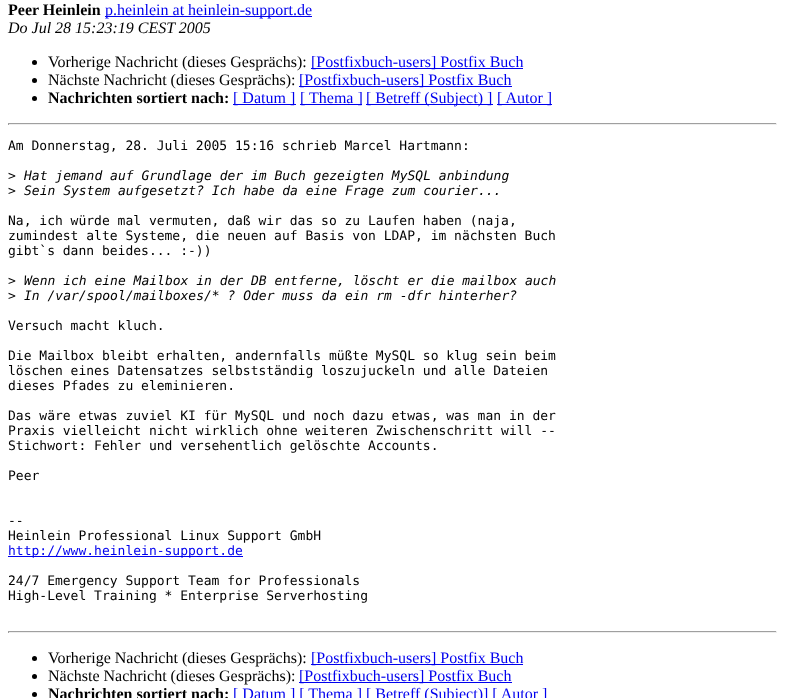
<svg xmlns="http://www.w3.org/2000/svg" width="785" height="698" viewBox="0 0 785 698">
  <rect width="100%" height="100%" fill="#fff"/>
  <path d="M105 16h207v1H105z" fill="#00e"/>
  <circle cx="34.5" cy="62.5" r="2.5" fill="#000"/>
  <path d="M311 68h212v1H311z" fill="#00e"/>
  <circle cx="34.5" cy="80.5" r="2.5" fill="#000"/>
  <path d="M299 86h213v1H299z" fill="#00e"/>
  <circle cx="34.5" cy="98.5" r="2.5" fill="#000"/>
  <path d="M233 104h63v1H233z" fill="#00e"/>
  <path d="M300 104h62v1H300z" fill="#00e"/>
  <path d="M366 104h127v1H366z" fill="#00e"/>
  <path d="M497 104h55v1H497z" fill="#00e"/>
  <path d="M8 123h769v1H8z" fill="#9f9f9f"/>
  <path d="M776 123h1v2H776z" fill="#eee"/>
  <path d="M8 124h769v1H8z" fill="#eee"/>
  <path d="M8 123h1v2H8z" fill="#9f9f9f"/>
  <path d="M8 556h235v1H8z" fill="#00e"/>
  <path d="M8 631h769v1H8z" fill="#9f9f9f"/>
  <path d="M776 631h1v2H776z" fill="#eee"/>
  <path d="M8 632h769v1H8z" fill="#eee"/>
  <path d="M8 631h1v2H8z" fill="#9f9f9f"/>
  <circle cx="34.5" cy="658.5" r="2.5" fill="#000"/>
  <path d="M311 664h212v1H311z" fill="#00e"/>
  <circle cx="34.5" cy="676.5" r="2.5" fill="#000"/>
  <path d="M299 682h213v1H299z" fill="#00e"/>
  <circle cx="34.5" cy="694.5" r="2.5" fill="#000"/>
  <text x="8" y="15" font-family="Liberation Serif" font-size="16" font-weight="bold" fill="#000">Peer Heinlein</text>
  <text x="105" y="15" font-family="Liberation Serif" font-size="16" fill="#00e">p.heinlein at heinlein-support.de</text>
  <text x="8" y="33" font-family="Liberation Serif" font-size="16" font-style="italic" fill="#000">Do Jul 28 15:23:19 CEST 2005</text>
  <text x="48" y="67" font-family="Liberation Serif" font-size="16" fill="#000">Vorherige Nachricht (dieses Gesprächs):</text>
  <text x="311" y="67" font-family="Liberation Serif" font-size="16" fill="#00e">[Postfixbuch-users] Postfix Buch</text>
  <text x="48" y="85" font-family="Liberation Serif" font-size="16" fill="#000">Nächste Nachricht (dieses Gesprächs):</text>
  <text x="299" y="85" font-family="Liberation Serif" font-size="16" fill="#00e">[Postfixbuch-users] Postfix Buch</text>
  <text x="48" y="103" font-family="Liberation Serif" font-size="16" font-weight="bold" fill="#000">Nachrichten sortiert nach:</text>
  <g font-family="Liberation Serif" font-size="16" fill="#00e">
    <text x="233" y="103">[ Datum ]</text>
    <text x="300" y="103">[ Thema ]</text>
    <text x="366" y="103">[ Betreff (Subject) ]</text>
    <text x="497" y="103">[ Autor ]</text>
  </g>
  <g font-family="DejaVu Sans Mono" font-size="13" fill="#000">
    <text x="8" y="150">Am Donnerstag, 28. Juli 2005 15:16 schrieb Marcel Hartmann:</text>
    <text x="8" y="180">&gt;</text>
  </g>
  <text x="24" y="180" font-family="DejaVu Sans Mono" font-size="13" font-style="italic" fill="#000">Hat jemand auf Grundlage der im Buch gezeigten MySQL anbindung</text>
  <text x="8" y="195" font-family="DejaVu Sans Mono" font-size="13" fill="#000">&gt;</text>
  <text x="24" y="195" font-family="DejaVu Sans Mono" font-size="13" font-style="italic" fill="#000">Sein System aufgesetzt? Ich habe da eine Frage zum courier...</text>
  <g font-family="DejaVu Sans Mono" font-size="13" fill="#000">
    <text x="8" y="225">Na, ich würde mal vermuten, daß wir das so zu Laufen haben (naja,</text>
    <text x="8" y="240">zumindest alte Systeme, die neuen auf Basis von LDAP, im nächsten Buch</text>
    <text x="8" y="255">gibt`s dann beides... :-))</text>
    <text x="8" y="285">&gt;</text>
  </g>
  <text x="24" y="285" font-family="DejaVu Sans Mono" font-size="13" font-style="italic" fill="#000">Wenn ich eine Mailbox in der DB entferne, löscht er die mailbox auch</text>
  <text x="8" y="300" font-family="DejaVu Sans Mono" font-size="13" fill="#000">&gt;</text>
  <text x="24" y="300" font-family="DejaVu Sans Mono" font-size="13" font-style="italic" fill="#000">In /var/spool/mailboxes/* ? Oder muss da ein rm -dfr hinterher?</text>
  <g font-family="DejaVu Sans Mono" font-size="13" fill="#000">
    <text x="8" y="330">Versuch macht kluch.</text>
    <text x="8" y="360">Die Mailbox bleibt erhalten, andernfalls müßte MySQL so klug sein beim</text>
    <text x="8" y="375">löschen eines Datensatzes selbstständig loszujuckeln und alle Dateien</text>
    <text x="8" y="390">dieses Pfades zu eleminieren.</text>
    <text x="8" y="420">Das wäre etwas zuviel KI für MySQL und noch dazu etwas, was man in der</text>
    <text x="8" y="435">Praxis vielleicht nicht wirklich ohne weiteren Zwischenschritt will --</text>
    <text x="8" y="450">Stichwort: Fehler und versehentlich gelöschte Accounts.</text>
    <text x="8" y="480">Peer</text>
    <text x="8" y="525">--</text>
    <text x="8" y="540">Heinlein Professional Linux Support GmbH</text>
  </g>
  <text x="8" y="555" font-family="DejaVu Sans Mono" font-size="13" fill="#00e">http://www.heinlein-support.de</text>
  <g font-family="DejaVu Sans Mono" font-size="13" fill="#000">
    <text x="8" y="585">24/7 Emergency Support Team for Professionals</text>
    <text x="8" y="600">High-Level Training * Enterprise Serverhosting</text>
  </g>
  <text x="48" y="663" font-family="Liberation Serif" font-size="16" fill="#000">Vorherige Nachricht (dieses Gesprächs):</text>
  <text x="311" y="663" font-family="Liberation Serif" font-size="16" fill="#00e">[Postfixbuch-users] Postfix Buch</text>
  <text x="48" y="681" font-family="Liberation Serif" font-size="16" fill="#000">Nächste Nachricht (dieses Gesprächs):</text>
  <text x="299" y="681" font-family="Liberation Serif" font-size="16" fill="#00e">[Postfixbuch-users] Postfix Buch</text>
  <text x="48" y="699" font-family="Liberation Serif" font-size="16" font-weight="bold" fill="#000">Nachrichten sortiert nach:</text>
  <text x="233" y="699" font-family="Liberation Serif" font-size="16" fill="#00e">[ Datum ] [ Thema ] [ Betreff (Subject)] [ Autor ]</text>
</svg>
